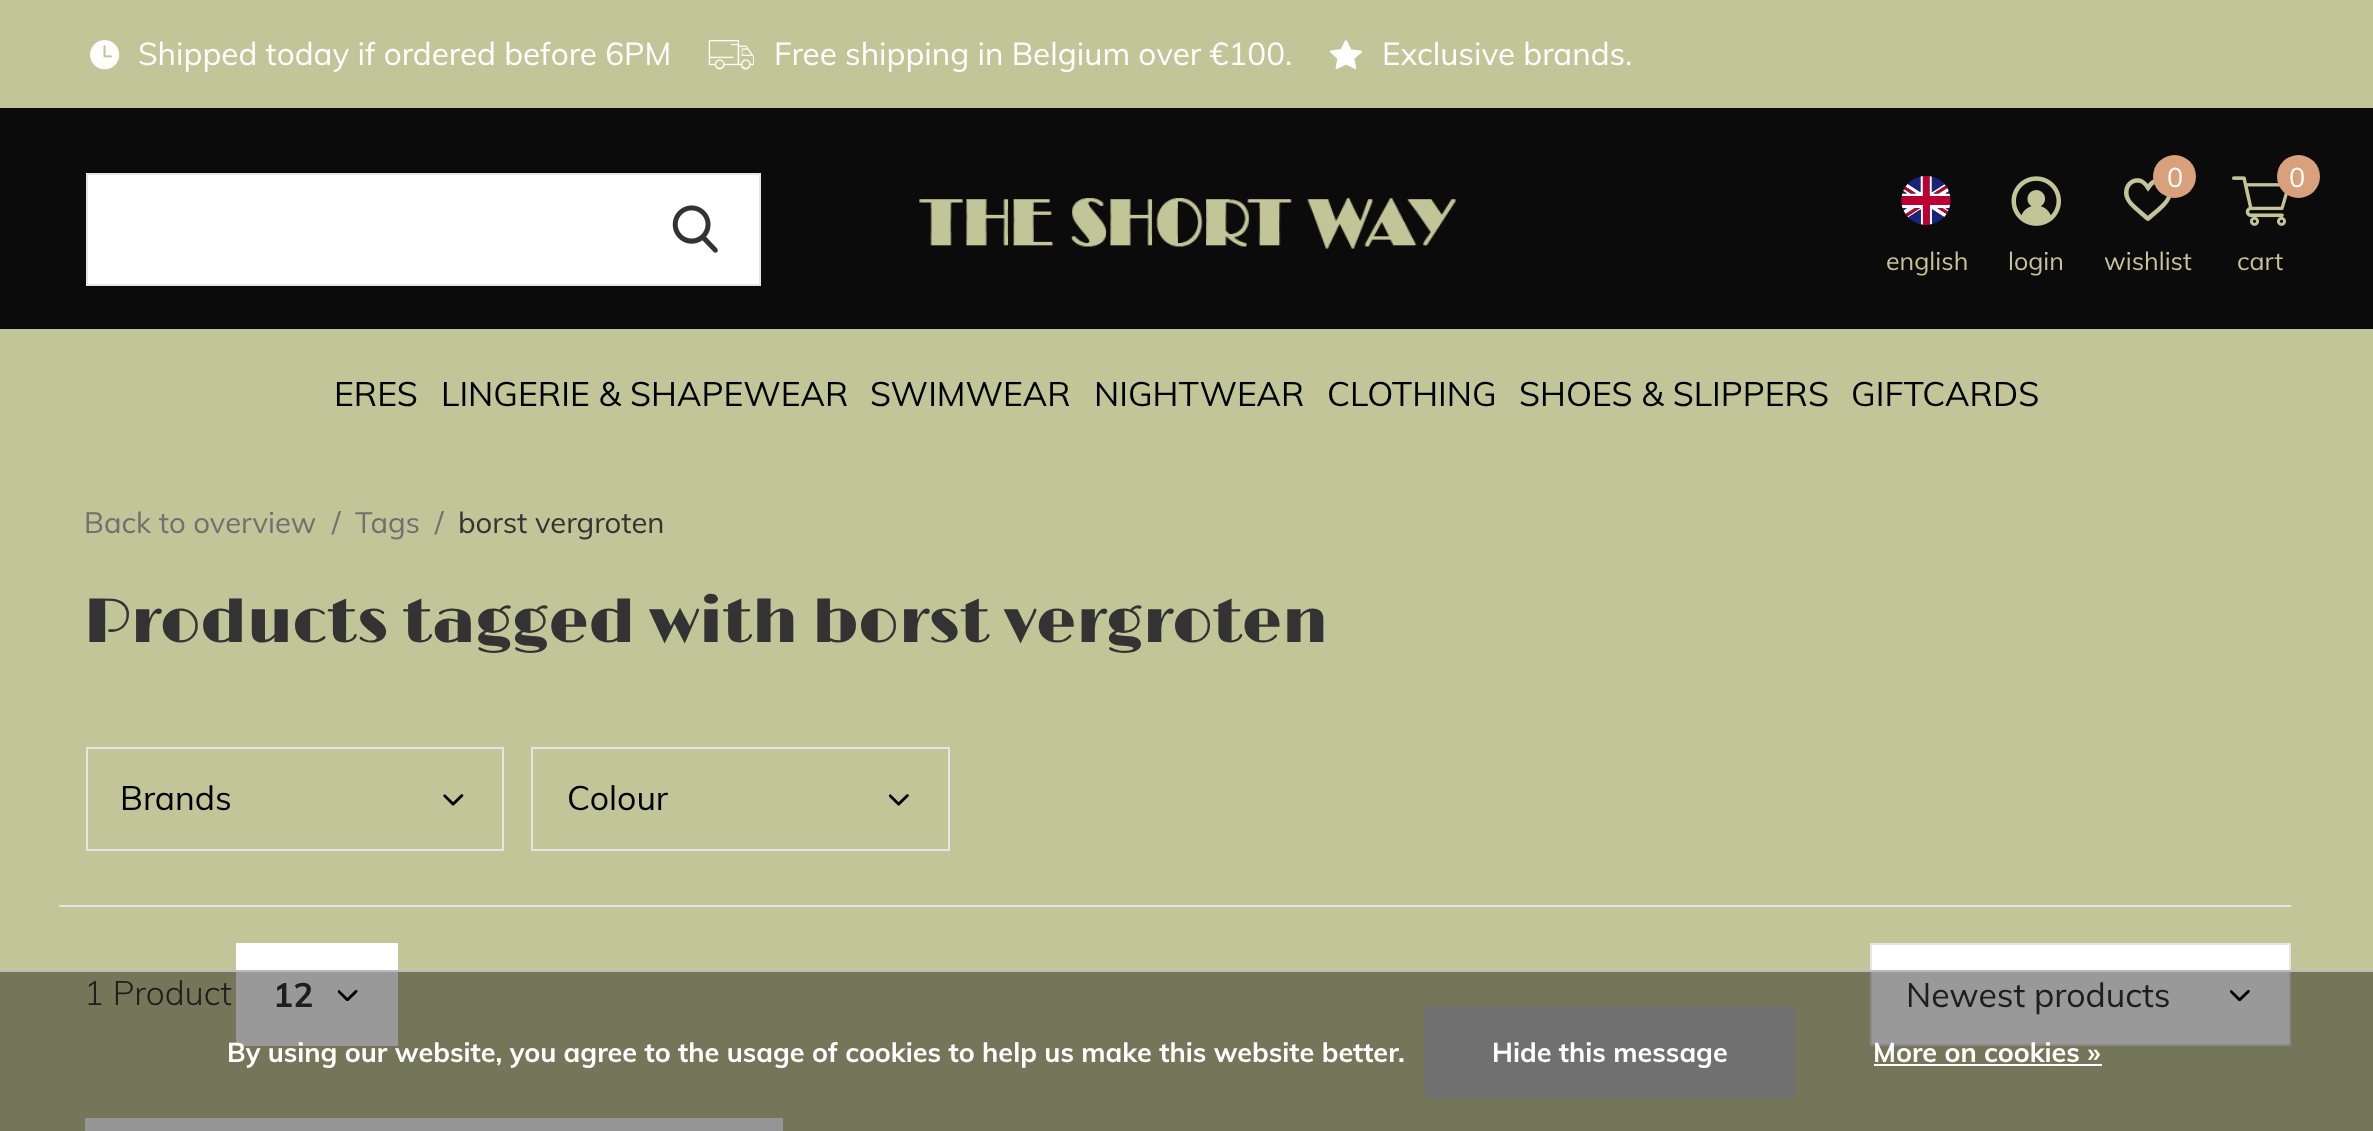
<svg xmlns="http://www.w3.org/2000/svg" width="2373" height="1131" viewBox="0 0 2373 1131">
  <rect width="100%" height="100%" fill="#c2c597"/>
  <image x="90" y="40" width="30" height="30" href="img/1.png"/>
  <image x="708" y="40" width="46" height="30" href="img/2.png"/>
  <image x="1329" y="40" width="34" height="30" href="img/3.png"/>
  <path d="M0 108h2373v221H0z" fill="#0b0b0b"/>
  <image x="1901" y="176" width="50" height="49" href="img/4.png"/>
  <image x="2011" y="176" width="50" height="50" href="img/5.png"/>
  <image x="2124" y="178" width="47" height="43" href="img/6.png"/>
  <circle cx="2174.5" cy="176.5" r="21.5" fill="#d9a17b"/>
  <image x="2232" y="176" width="56" height="50" href="img/7.png"/>
  <circle cx="2298.5" cy="176.5" r="21.5" fill="#d9a17b"/>
  <path d="M87 174h673v111H87z" fill="#fff" stroke="#e5e5e5" stroke-width="2"/>
  <image x="672" y="205" width="46" height="48" href="img/8.png"/>
  <image x="919" y="198" width="537" height="51" href="img/9.png"/>
  <image x="443" y="794" width="21" height="12" href="img/10.png"/>
  <path d="M87 748h416v102H87z" fill="none" stroke="#e5e5e5" stroke-width="2"/>
  <image x="889" y="794" width="20" height="12" href="img/11.png"/>
  <path d="M532 748h417v102H532z" fill="none" stroke="#e5e5e5" stroke-width="2"/>
  <path d="M59 905h2232v2H59z" fill="#e5e5e5"/>
  <path d="M236 943h162v103H236z" fill="#fff"/>
  <image x="338" y="990" width="20" height="11" href="img/12.png"/>
  <path d="M1872 945h417v99H1872z" fill="#fff"/>
  <image x="2230" y="990" width="20" height="11" href="img/13.png"/>
  <path d="M1871 944h419v101H1871z" fill="none" stroke="#e5e5e5" stroke-width="2"/>
  <path d="M85 1118h698v13H85z" fill="#f9f9f9"/>
  <path d="M0 970h2373v2H0z" fill="#bbb"/>
  <g font-family="Muli" font-size="31.5" fill="#fff">
    <text x="138" y="65">Shipped today if ordered before 6PM</text>
    <text x="774" y="65">Free shipping in Belgium over €100.</text>
    <text x="1382" y="65">Exclusive brands.</text>
  </g>
  <g font-family="Muli" font-size="25" fill="#c2c597">
    <text x="1886" y="270">english</text>
    <text x="2008" y="270">login</text>
  </g>
  <text x="2167" y="187" font-family="Muli" font-size="27" fill="#fff">0</text>
  <text x="2104" y="270" font-family="Muli" font-size="25" fill="#c2c597">wishlist</text>
  <text x="2289" y="187" font-family="Muli" font-size="27" fill="#fff">0</text>
  <text x="2237" y="270" font-family="Muli" font-size="25" fill="#c2c597">cart</text>
  <g font-family="Muli" font-size="33.75" fill="#000">
    <text x="334" y="406">ERES</text>
    <text x="441" y="406">LINGERIE &amp; SHAPEWEAR</text>
    <text x="870" y="406">SWIMWEAR</text>
    <text x="1094" y="406">NIGHTWEAR</text>
    <text x="1327" y="406">CLOTHING</text>
    <text x="1519" y="406">SHOES &amp; SLIPPERS</text>
    <text x="1851" y="406">GIFTCARDS</text>
  </g>
  <g font-family="Muli" font-size="29.25" fill="#707070">
    <text x="84" y="533">Back to overview</text>
    <text x="332" y="533">/</text>
    <text x="355" y="533">Tags</text>
    <text x="435" y="533">/</text>
  </g>
  <text x="458" y="533" font-family="Muli" font-size="29.25" fill="#333">borst vergroten</text>
  <text x="84" y="642" font-family="Limelight" font-size="63" font-weight="300" fill="#333">Products tagged with borst vergroten</text>
  <g font-family="Muli" font-size="33.75" fill="#000">
    <text x="120" y="810">Brands</text>
    <text x="567" y="810">Colour</text>
  </g>
  <text x="84" y="1005" font-family="Muli" font-size="33.75" font-weight="300" fill="#333">1 Product</text>
  <text x="273" y="1007" font-family="Muli" font-size="33.75" font-weight="bold" fill="#333">12</text>
  <text x="1906" y="1007" font-family="Muli" font-size="33.75" fill="#333">Newest products</text>
  <path d="M0 972h2373v159H0z" fill="#00000066"/>
  <text x="227" y="1062" font-family="Muli" font-size="27" font-weight="bold" fill="#fff">By using our website, you agree to the usage of cookies to help us make this website better.</text>
  <rect x="1424" y="1006" width="372" height="92" rx="7" fill="#707070"/>
  <g font-family="Muli" font-size="27" font-weight="bold" fill="#fff">
    <text x="1492" y="1062">Hide this message</text>
    <text x="1873" y="1062">More on cookies »</text>
  </g>
  <path d="M1874 1064h228v2H1874z" fill="#fff"/>
</svg>
